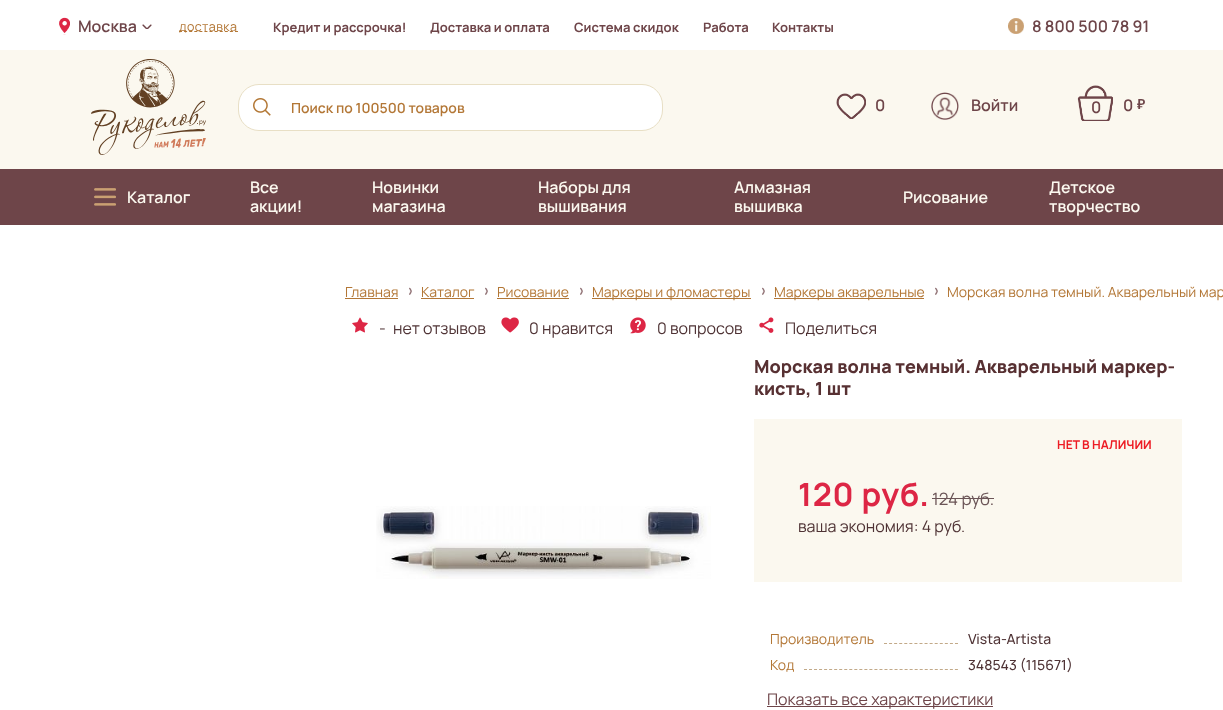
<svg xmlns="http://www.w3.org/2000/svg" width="1223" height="710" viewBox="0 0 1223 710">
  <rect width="100%" height="100%" fill="#fff"/>
  <image x="59" y="17" width="11" height="18" href="img/1.png"/>
  <image x="142" y="24" width="10" height="5" href="img/2.png"/>
  <path d="M179 31.5H238" fill="none" stroke="#b37736" stroke-dasharray="3 2.09"/>
  <image x="1008" y="18" width="16" height="16" href="img/3.png"/>
  <path d="M0 50h1223v119H0z" fill="#fbf8ef"/>
  <image x="91" y="59" width="115" height="96" href="img/4.png"/>
  <rect x="238.5" y="84.5" width="424" height="46" rx="20.5" fill="#fff" stroke="#e8dfc5"/>
  <image x="253" y="98" width="18" height="18" href="img/5.png"/>
  <image x="836" y="93" width="30" height="26" href="img/6.png"/>
  <image x="931" y="92" width="28" height="28" href="img/7.png"/>
  <image x="1077" y="85" width="36" height="36" href="img/8.png"/>
  <path d="M0 169h1223v56H0z" fill="#6e4549"/>
  <image x="94" y="188" width="22" height="18" href="img/9.png"/>
  <path d="M345 298h53v1H345z" fill="#b37736"/>
  <image x="409" y="287" width="3" height="8" href="img/10.png"/>
  <path d="M421 298h53v1H421z" fill="#b37736"/>
  <image x="485" y="287" width="3" height="8" href="img/10.png"/>
  <path d="M497 298h72v1H497z" fill="#b37736"/>
  <image x="580" y="287" width="3" height="8" href="img/10.png"/>
  <path d="M592 298h159v1H592z" fill="#b37736"/>
  <image x="762" y="287" width="3" height="8" href="img/10.png"/>
  <path d="M774 298h150v1H774z" fill="#b37736"/>
  <image x="935" y="287" width="3" height="8" href="img/10.png"/>
  <image x="352" y="317" width="16" height="16" href="img/11.png"/>
  <image x="501" y="317" width="18" height="16" href="img/12.png"/>
  <image x="630" y="317" width="16" height="17" href="img/13.png"/>
  <image x="759" y="317" width="15" height="16" href="img/14.png"/>
  <image x="376" y="506" width="335" height="73" href="img/15.png"/>
  <path d="M754 419h428v163H754z" fill="#fbf8ef"/>
  <path d="M932 498h62v1H932z" fill="#6b5557"/>
  <path d="M884 643.5H958" fill="none" stroke="#c2a988" stroke-dasharray="3 2.07"/>
  <path d="M804 669.5H958" fill="none" stroke="#c2a988" stroke-dasharray="3 2.03"/>
  <path d="M767 706h226v1H767z" fill="#6e4549"/>
  <text x="78" y="32" font-family="Manrope" font-size="16" font-weight="600" fill="#6e4549">Москва</text>
  <text x="179" y="31" font-family="Manrope" font-size="12.5" letter-spacing="0.5" fill="#b37736">доставка</text>
  <g font-family="Manrope" font-size="13" font-weight="bold" fill="#6e4549">
    <text x="273" y="32">Кредит и рассрочка!</text>
    <text x="430" y="32">Доставка и оплата</text>
    <text x="574" y="32">Система скидок</text>
    <text x="703" y="32">Работа</text>
    <text x="772" y="32">Контакты</text>
  </g>
  <text x="1032" y="32" font-family="Manrope" font-size="16" font-weight="600" fill="#6e4549">8 800 500 78 91</text>
  <text x="291" y="113" font-family="Manrope" font-size="14" font-weight="600" fill="#b37736">Поиск по 100500 товаров</text>
  <g font-family="Manrope" font-size="16" font-weight="600" fill="#6e4549">
    <text x="875" y="111">0</text>
    <text x="971" y="111">Войти</text>
    <text x="1091" y="113">0</text>
    <text x="1123" y="111">0</text>
  </g>
  <text x="1137" y="109" font-family="Noto Sans" font-size="14" font-weight="600" fill="#6e4549">₽</text>
  <g font-family="Manrope" font-size="16" font-weight="600" fill="#fbf8ef">
    <text x="127" y="203">Каталог</text>
    <text x="250" y="193">Все</text>
    <text x="250" y="212">акции!</text>
    <text x="372" y="193">Новинки</text>
    <text x="372" y="212">магазина</text>
    <text x="538" y="193">Наборы для</text>
    <text x="538" y="212">вышивания</text>
    <text x="734" y="193">Алмазная</text>
    <text x="734" y="212">вышивка</text>
    <text x="903" y="203">Рисование</text>
    <text x="1049" y="193">Детское</text>
    <text x="1049" y="212">творчество</text>
  </g>
  <g font-family="Manrope" font-size="14" fill="#b37736">
    <text x="345" y="297">Главная</text>
    <text x="421" y="297">Каталог</text>
    <text x="497" y="297">Рисование</text>
    <text x="592" y="297">Маркеры и фломастеры</text>
    <text x="774" y="297">Маркеры акварельные</text>
    <text x="947" y="297">Морская волна темный. Акварельный мар</text>
  </g>
  <g font-family="Manrope" font-size="16" fill="#4f3335">
    <text x="379" y="334">-</text>
    <text x="393" y="334">нет отзывов</text>
    <text x="529" y="334">0 нравится</text>
    <text x="657" y="334">0 вопросов</text>
    <text x="785" y="334">Поделиться</text>
  </g>
  <g font-family="Manrope" font-size="18" font-weight="800" fill="#573032">
    <text x="754" y="373">Морская волна темный. Акварельный маркер-</text>
    <text x="754" y="395">кисть, 1 шт</text>
  </g>
  <text x="1057" y="449" font-family="Manrope" font-size="12" font-weight="bold" fill="#ed1c24">НЕТ В НАЛИЧИИ</text>
  <text x="798" y="506" font-family="Manrope" font-size="32" font-weight="bold" letter-spacing="0.75" fill="#dd2645">120 руб.</text>
  <text x="932" y="505" font-family="Manrope" font-size="17" fill="#6b5557">124 руб.</text>
  <text x="798" y="532" font-family="Manrope" font-size="16" fill="#4f3335">ваша экономия: 4 руб.</text>
  <text x="770" y="644" font-family="Manrope" font-size="14" fill="#b37736">Производитель</text>
  <text x="968" y="644" font-family="Manrope" font-size="14" font-weight="500" fill="#4f3335">Vista-Artista</text>
  <text x="770" y="670" font-family="Manrope" font-size="14" fill="#b37736">Код</text>
  <text x="968" y="670" font-family="Manrope" font-size="14" font-weight="500" fill="#4f3335">348543 (115671)</text>
  <text x="767" y="705" font-family="Manrope" font-size="16" fill="#6e4549">Показать все характеристики</text>
</svg>
